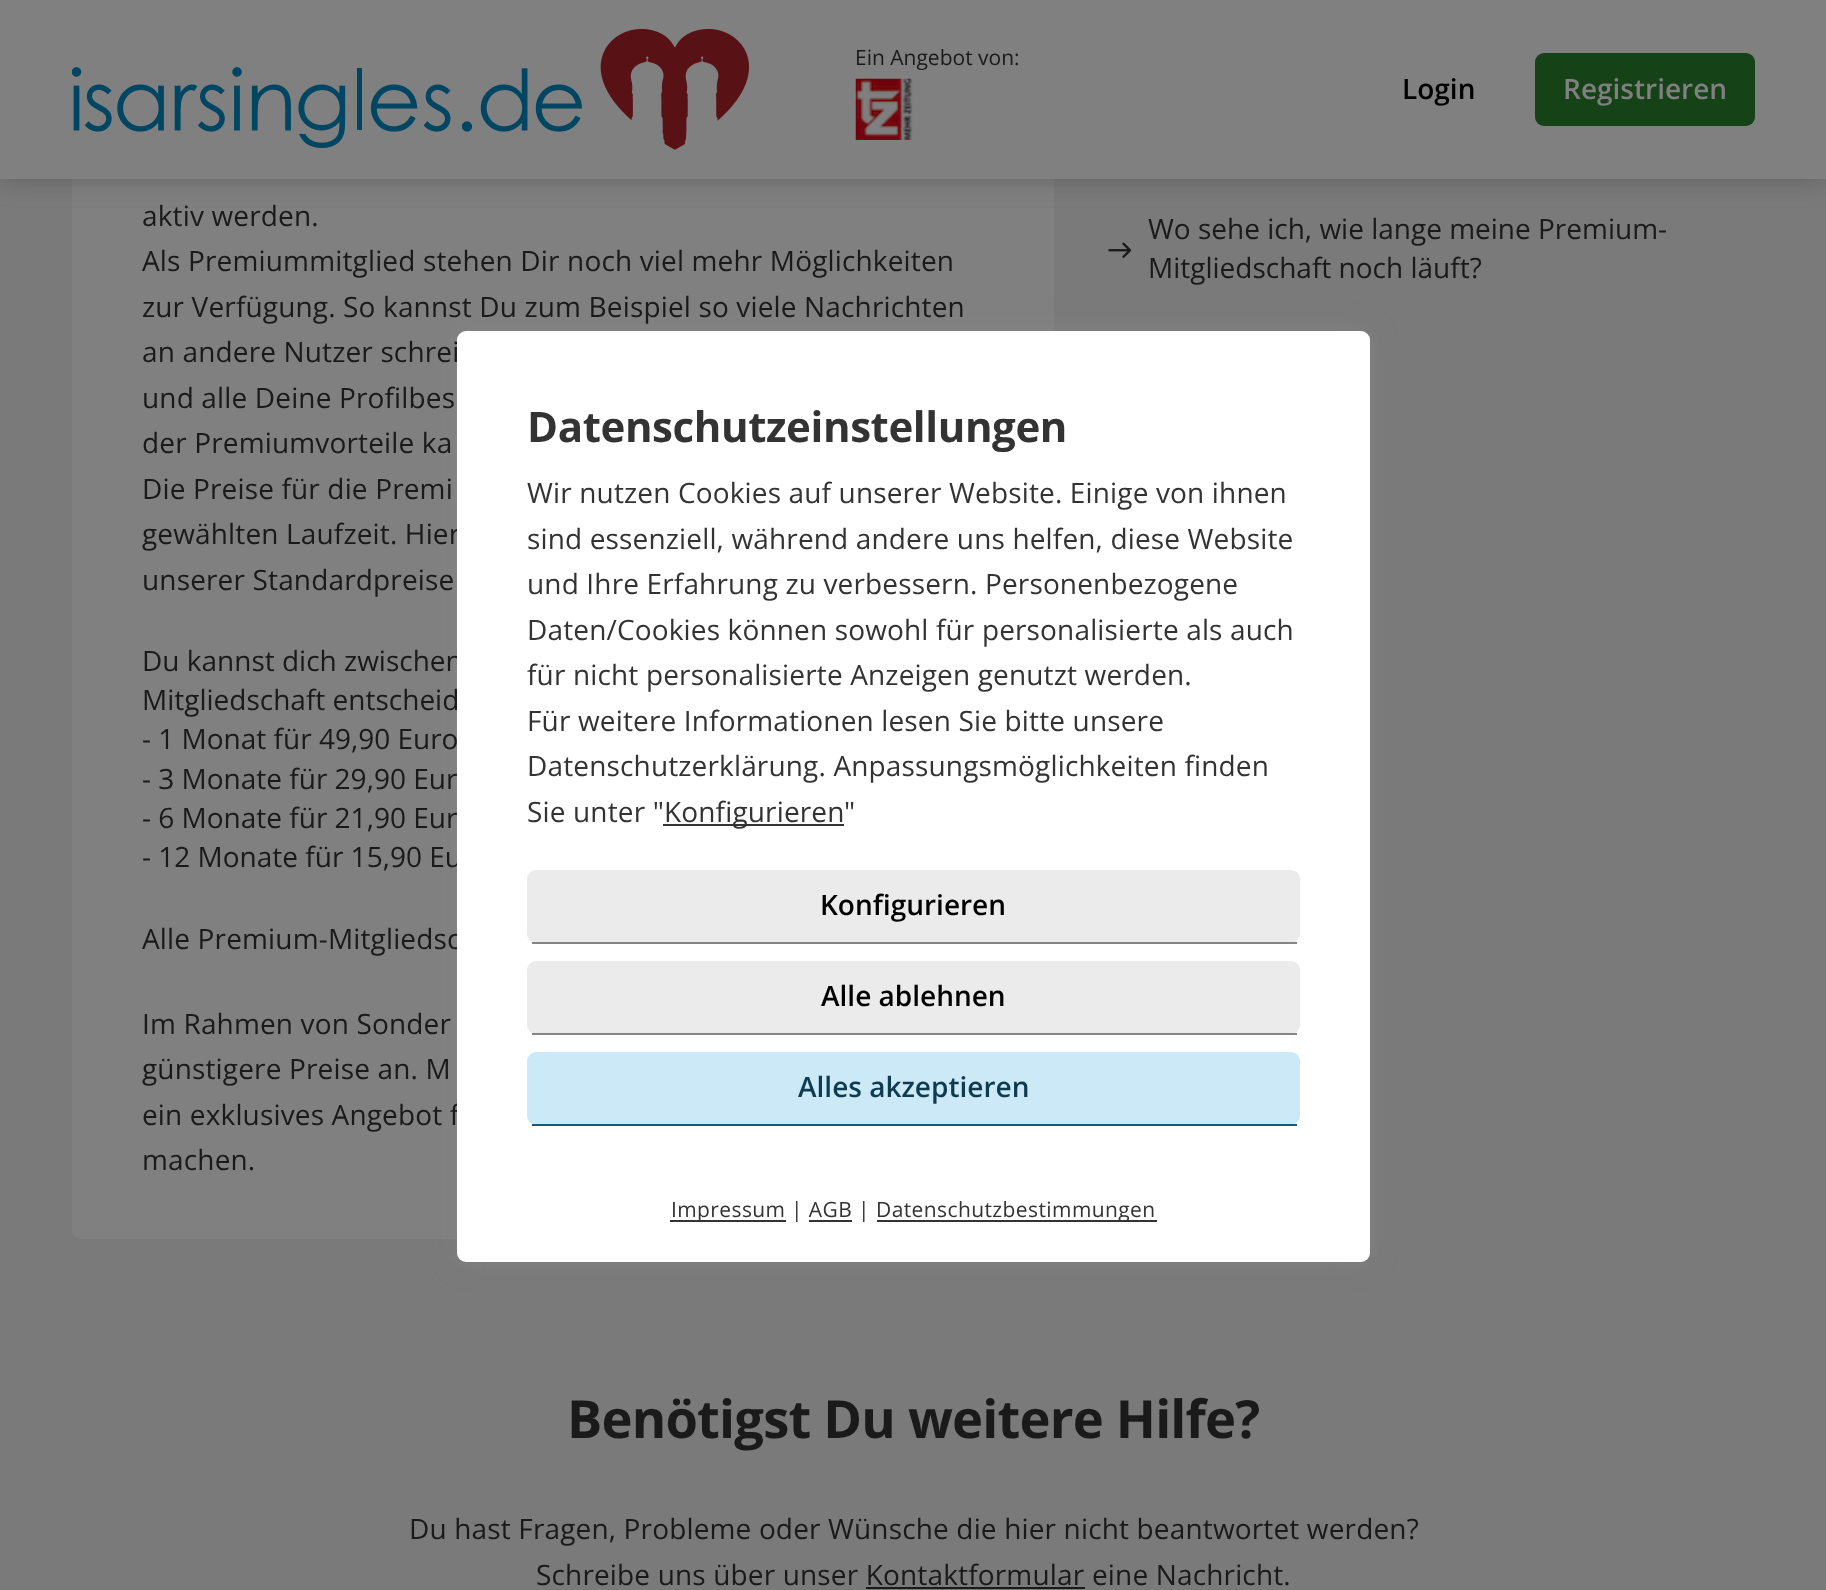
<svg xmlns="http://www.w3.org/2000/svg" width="1826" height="1590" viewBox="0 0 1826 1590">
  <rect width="100%" height="100%" fill="#7a7a7a"/>
  <rect x="72" y="-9" width="982" height="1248" rx="9" fill="#808080"/>
  <path d="M0 0h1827v179H0z" fill="#44444480" filter="blur(13px)"/>
  <path d="M0 0h1826v179H0z" fill="#808080"/>
  <image x="72" y="28" width="678" height="122" href="img/1.png"/>
  <image x="855" y="78" width="58" height="62" href="img/2.png"/>
  <rect x="1535" y="53" width="220" height="73" rx="9" fill="#154216"/>
  <image x="1108" y="242" width="24" height="16" href="img/3.png"/>
  <path d="M866 1587h219v2H866z" fill="#1a1a1a"/>
  <rect x="457" y="331" width="913" height="931" rx="9" fill="#88888880" filter="blur(13px)"/>
  <text x="855" y="65" font-family="Open Sans" font-size="21" fill="#1a1a1a">Ein Angebot von:</text>
  <text x="1402" y="99" font-family="Open Sans" font-size="28" font-weight="600" fill="#000">Login</text>
  <text x="1563" y="99" font-family="Open Sans" font-size="28" font-weight="600" fill="#808080">Registrieren</text>
  <g font-family="Open Sans" font-size="28" letter-spacing="0.15" fill="#1a1a1a">
    <text x="142" y="226">aktiv werden.</text>
    <text x="142" y="271">Als Premiummitglied stehen Dir noch viel mehr Möglichkeiten</text>
    <text x="142" y="317">zur Verfügung. So kannst Du zum Beispiel so viele Nachrichten</text>
    <text x="142" y="362">an andere Nutzer schrei</text>
    <text x="142" y="408">und alle Deine Profilbes</text>
    <text x="142" y="453">der Premiumvorteile ka</text>
    <text x="142" y="499">Die Preise für die Premi</text>
    <text x="142" y="544">gewählten Laufzeit. Hier</text>
    <text x="142" y="590">unserer Standardpreise</text>
  </g>
  <g font-family="Open Sans" font-size="28" fill="#1a1a1a">
    <text x="142" y="671">Du kannst dich zwischen</text>
    <text x="142" y="710">Mitgliedschaft entscheid</text>
    <text x="142" y="749">- 1 Monat für 49,90 Euro</text>
    <text x="142" y="789">- 3 Monate für 29,90 Eur</text>
    <text x="142" y="828">- 6 Monate für 21,90 Eur</text>
    <text x="142" y="867">- 12 Monate für 15,90 Eu</text>
  </g>
  <g font-family="Open Sans" font-size="28" letter-spacing="0.15" fill="#1a1a1a">
    <text x="142" y="949">Alle Premium-Mitgliedsc</text>
    <text x="142" y="1034">Im Rahmen von Sonder</text>
    <text x="142" y="1079">günstigere Preise an. M</text>
    <text x="142" y="1125">ein exklusives Angebot f</text>
    <text x="142" y="1170">machen.</text>
  </g>
  <g font-family="Open Sans" font-size="28" fill="#1a1a1a">
    <text x="1148" y="239">Wo sehe ich, wie lange meine Premium-</text>
    <text x="1148" y="278">Mitgliedschaft noch läuft?</text>
  </g>
  <text x="567" y="1438" font-family="Open Sans" font-size="52.5" font-weight="bold" letter-spacing="-0.8" fill="#1a1a1a">Benötigst Du weitere Hilfe?</text>
  <g font-family="Open Sans" font-size="28" letter-spacing="0.15" fill="#1a1a1a">
    <text x="409" y="1539">Du hast Fragen, Probleme oder Wünsche die hier nicht beantwortet werden?</text>
    <text x="536" y="1585">Schreibe uns über unser Kontaktformular</text>
    <text x="1092" y="1585">eine Nachricht.</text>
  </g>
  <rect x="457" y="331" width="913" height="931" rx="9" fill="#fff"/>
  <text x="527" y="442" font-family="Open Sans" font-size="42" font-weight="bold" letter-spacing="-0.4" fill="#333">Datenschutzeinstellungen</text>
  <g font-family="Open Sans" font-size="28" letter-spacing="0.15" fill="#333">
    <text x="527" y="503">Wir nutzen Cookies auf unserer Website. Einige von ihnen</text>
    <text x="527" y="549">sind essenziell, während andere uns helfen, diese Website</text>
    <text x="527" y="594">und Ihre Erfahrung zu verbessern. Personenbezogene</text>
    <text x="527" y="640">Daten/Cookies können sowohl für personalisierte als auch</text>
    <text x="527" y="685">für nicht personalisierte Anzeigen genutzt werden.</text>
    <text x="527" y="731">Für weitere Informationen lesen Sie bitte unsere</text>
    <text x="527" y="776">Datenschutzerklärung. Anpassungsmöglichkeiten finden</text>
    <text x="527" y="822">Sie unter "</text>
  </g>
  <path d="M663 824h181v2H663z" fill="#333"/>
  <g font-family="Open Sans" font-size="28" letter-spacing="0.15" fill="#333">
    <text x="664" y="822">Konfigurieren</text>
    <text x="844" y="822">"</text>
  </g>
  <rect x="527" y="870" width="773" height="73" rx="9" fill="#ebebeb"/>
  <path d="M532 942h765v2H532z" fill="#858585"/>
  <text x="820" y="915" font-family="Open Sans" font-size="28" font-weight="600" fill="#000">Konfigurieren</text>
  <rect x="527" y="961" width="773" height="73" rx="9" fill="#ebebeb"/>
  <path d="M532 1033h765v2H532z" fill="#858585"/>
  <text x="821" y="1006" font-family="Open Sans" font-size="28" font-weight="600" fill="#000">Alle ablehnen</text>
  <rect x="527" y="1052" width="773" height="73" rx="9" fill="#cbe9f6"/>
  <path d="M532 1124h765v2H532z" fill="#155b79"/>
  <text x="798" y="1097" font-family="Open Sans" font-size="28" font-weight="600" fill="#0e3b4e">Alles akzeptieren</text>
  <path d="M670 1220h116v2H670z" fill="#333"/>
  <g font-family="Open Sans" font-size="21" letter-spacing="0.4" fill="#333">
    <text x="671" y="1217">Impressum</text>
    <text x="791" y="1217">| AGB</text>
    <text x="858" y="1217">|</text>
  </g>
  <path d="M877 1220h280v2H877z" fill="#333"/>
  <text x="876" y="1217" font-family="Open Sans" font-size="21" letter-spacing="0.4" fill="#333">Datenschutzbestimmungen</text>
  <path d="M809 1220h43v2H809z" fill="#333"/>
</svg>
